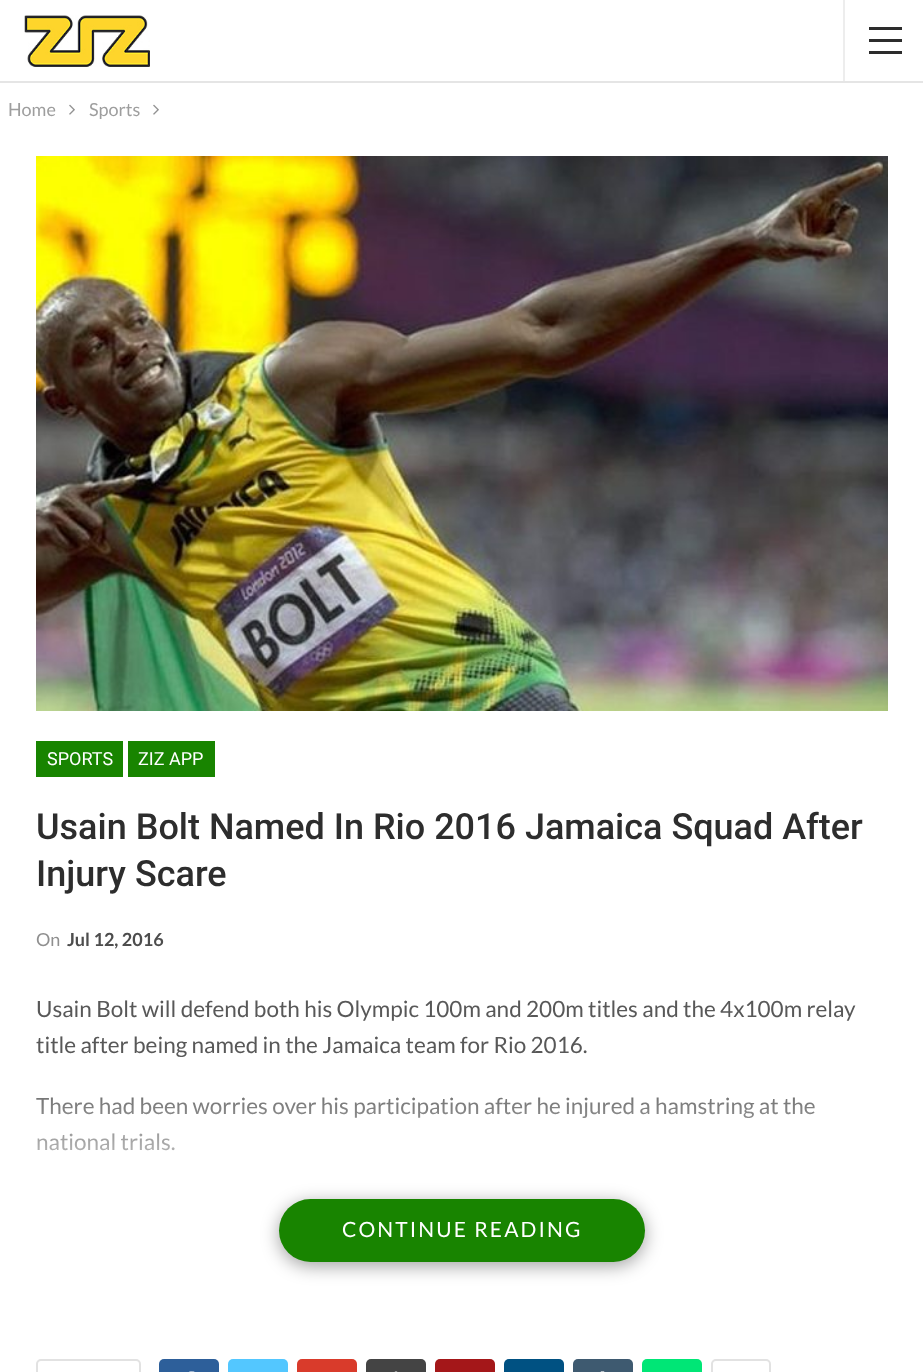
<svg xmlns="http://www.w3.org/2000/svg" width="923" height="1372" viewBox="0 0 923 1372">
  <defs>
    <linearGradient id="g1" gradientUnits="userSpaceOnUse" x1="462" y1="990" x2="462" y2="1221"><stop offset="0.35" stop-color="#fff" stop-opacity="0"/><stop offset="1" stop-color="#fff"/></linearGradient>
  </defs>
  <rect width="100%" height="100%" fill="#fff"/>
  <path d="M0 81h923v2H0z" fill="#e5e5e5"/>
  <image x="24" y="15" width="126" height="52" href="img/1.png"/>
  <path d="M843 0h2v81H843z" fill="#ededed"/>
  <path d="M869 39h33v3H869z" fill="#2c2c2c"/>
  <path d="M869 27h33v3H869z" fill="#2c2c2c"/>
  <path d="M869 51h33v3H869z" fill="#2c2c2c"/>
  <image x="69" y="104" width="6" height="11" href="img/2.png"/>
  <image x="153" y="104" width="6" height="11" href="img/2.png"/>
  <image x="36" y="156" width="852" height="555" href="img/3.png"/>
  <path d="M36 741h87v36H36z" fill="#188400"/>
  <path d="M128 741h87v36H128z" fill="#188400"/>
  <rect x="279" y="1203" width="366" height="63" rx="31.5" fill="#0000005e" filter="blur(9px)"/>
  <rect x="279" y="1199" width="366" height="63" rx="31.5" fill="#188400"/>
  <rect x="37" y="1360" width="103" height="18" rx="4" fill="none" stroke="#e2e2e2" stroke-width="2"/>
  <rect x="159" y="1359" width="60" height="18" rx="5" fill="#2d5f9a"/>
  <image x="189" y="1371" width="6" height="1" href="img/4.png"/>
  <rect x="228" y="1359" width="60" height="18" rx="5" fill="#53c7ff"/>
  <rect x="297" y="1359" width="60" height="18" rx="5" fill="#d93b2b"/>
  <rect x="366" y="1359" width="60" height="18" rx="5" fill="#444"/>
  <image x="394" y="1371" width="4" height="1" href="img/5.png"/>
  <rect x="435" y="1359" width="60" height="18" rx="5" fill="#a41719"/>
  <rect x="504" y="1359" width="60" height="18" rx="5" fill="#005182"/>
  <rect x="573" y="1359" width="60" height="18" rx="5" fill="#3e5a70"/>
  <image x="600" y="1371" width="5" height="1" href="img/6.png"/>
  <rect x="642" y="1359" width="60" height="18" rx="5" fill="#00e676"/>
  <rect x="712" y="1360" width="58" height="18" rx="4" fill="none" stroke="#e2e2e2" stroke-width="2"/>
  <g font-family="Lato" font-size="18" fill="#9e9e9e">
    <text x="8" y="116">Home</text>
    <text x="89" y="116">Sports</text>
  </g>
  <g font-family="Roboto" font-size="18" fill="#fff">
    <text x="47" y="765">SPORTS</text>
    <text x="138" y="765">ZIZ APP</text>
  </g>
  <g font-family="Roboto" font-size="36" font-weight="500" fill="#2d2d2d">
    <text x="36" y="839">Usain Bolt Named In Rio 2016 Jamaica Squad After</text>
    <text x="36" y="886">Injury Scare</text>
  </g>
  <text x="36" y="946" font-family="Lato" font-size="18" fill="#8f8f8f">On</text>
  <text x="67" y="946" font-family="Lato" font-size="18" font-weight="bold" fill="#4d4d4d">Jul 12, 2016</text>
  <g font-family="Lato" font-size="22.5" fill="#585858">
    <text x="36" y="1017">Usain Bolt will defend both his Olympic 100m and 200m titles and the 4x100m relay</text>
    <text x="36" y="1053">title after being named in the Jamaica team for Rio 2016.</text>
    <text x="36" y="1114">There had been worries over his participation after he injured a hamstring at the</text>
    <text x="36" y="1150">national trials.</text>
  </g>
  <path d="M36 1097h779v54H36z" fill="url(#g1)"/>
  <text x="342" y="1237" font-family="Lato" font-size="21" letter-spacing="2.1" fill="#fff">CONTINUE READING</text>
</svg>
